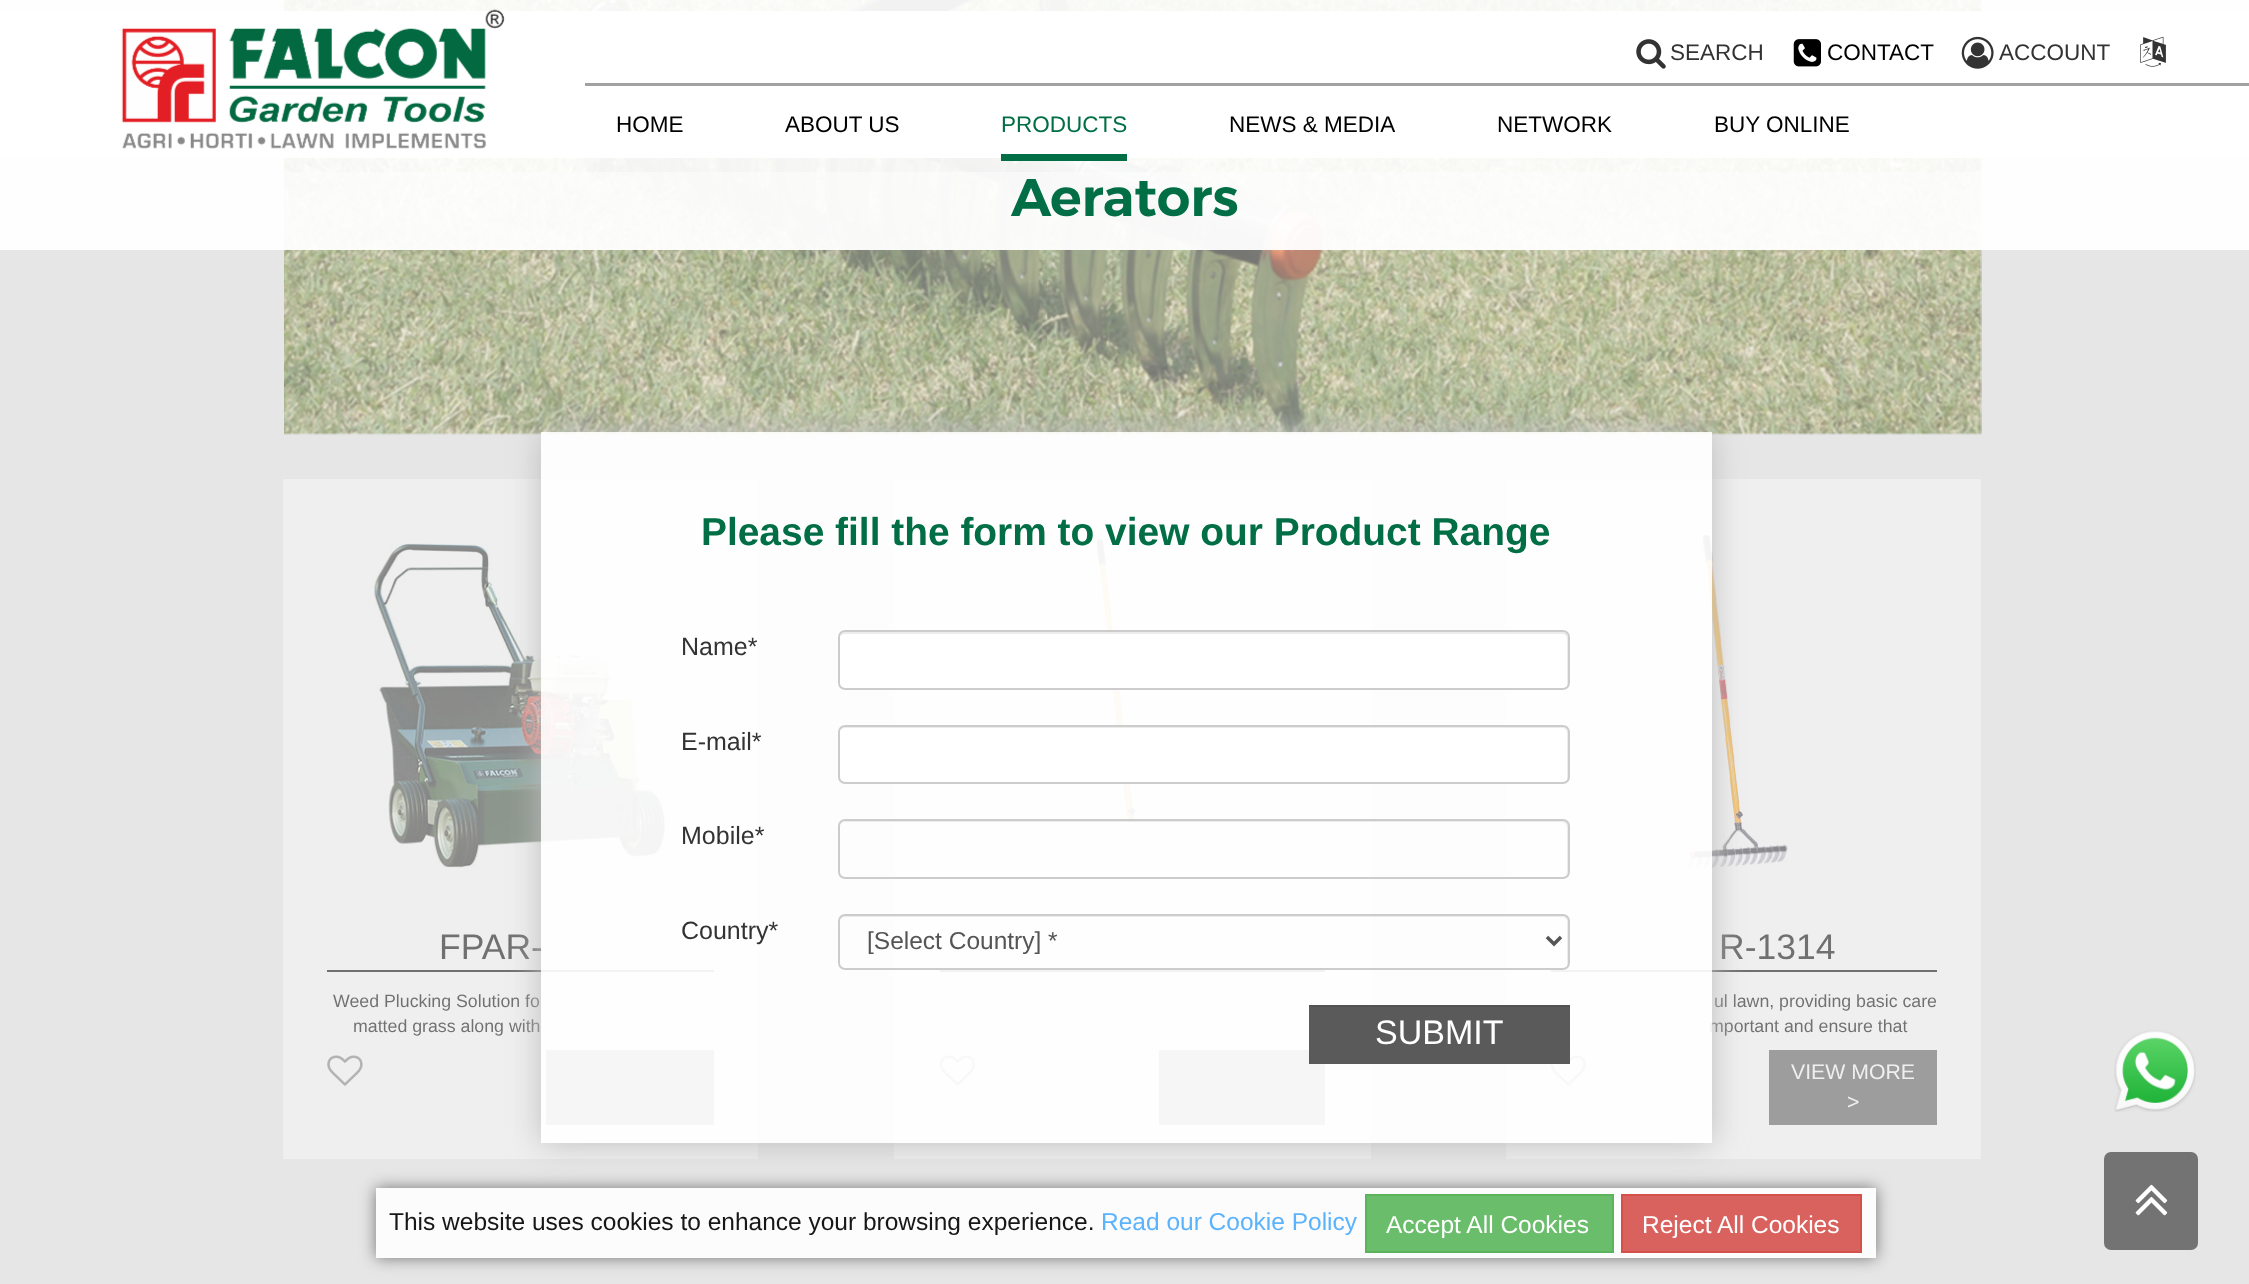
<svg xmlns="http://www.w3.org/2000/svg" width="2249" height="1284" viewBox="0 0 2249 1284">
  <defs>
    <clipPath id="clip1"><path d="M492 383H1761V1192H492ZM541 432H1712V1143H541Z" clip-rule="evenodd"/></clipPath>
  </defs>
  <rect width="100%" height="100%" fill="#ececec"/>
  <image x="284" y="0" width="1698" height="435" href="img/6.png"/>
  <path d="M283 479h475v680H283z" fill="#fff"/>
  <image x="374" y="543" width="293" height="326" href="img/7.png"/>
  <path d="M327 970h387v2H327z" fill="#000"/>
  <image x="327" y="1055" width="36" height="31" href="img/8.png"/>
  <path d="M546 1050h168v75H546z" fill="#5a5a5a"/>
  <path d="M894 479h477v680H894z" fill="#fff"/>
  <image x="1064" y="539" width="136" height="280" href="img/9.png"/>
  <path d="M940 970h385v2H940z" fill="#000"/>
  <image x="939" y="1055" width="37" height="31" href="img/10.png"/>
  <path d="M1159 1050h166v75H1159z" fill="#5a5a5a"/>
  <path d="M1506 479h475v680H1506z" fill="#fff"/>
  <image x="1686" y="534" width="102" height="335" href="img/11.png"/>
  <path d="M1551 970h386v2H1551z" fill="#000"/>
  <image x="1550" y="1055" width="36" height="31" href="img/12.png"/>
  <path d="M1769 1050h168v75H1769z" fill="#5a5a5a"/>
  <text x="439" y="959" font-family="Liberation Sans" font-size="35.5" fill="#000">FPAR-</text>
  <g font-family="Liberation Sans" font-size="17.75" fill="#000">
    <text x="333" y="1007">Weed Plucking Solution fo</text>
    <text x="353" y="1032">matted grass along with</text>
  </g>
  <text x="1719" y="959" font-family="Liberation Sans" font-size="35.5" fill="#000">R-1314</text>
  <g font-family="Liberation Sans" font-size="17.75" fill="#000">
    <text x="1714" y="1007">ul lawn, providing basic care</text>
    <text x="1709" y="1032">mportant and ensure that</text>
  </g>
  <g font-family="Liberation Sans" font-size="21.25" fill="#fff">
    <text x="1791" y="1079">VIEW MORE</text>
    <text x="1847" y="1109">&gt;</text>
  </g>
  <path d="M0 172h2249v1112H0z" fill="#e0e0e080"/>
  <path d="M0 11h2249v239H0z" fill="#fffffff2"/>
  <path d="M0 0h2249v158H0z" fill="#fffffff2"/>
  <text x="1999" y="60" font-family="Liberation Sans" font-size="22.5" fill="#333">ACCOUNT</text>
  <image x="1961" y="36" width="33" height="33" href="img/4.png"/>
  <image x="2140" y="36" width="26" height="31" href="img/5.png"/>
  <text x="1827" y="60" font-family="Liberation Sans" font-size="22.5" fill="#000">CONTACT</text>
  <image x="1793" y="39" width="28" height="28" href="img/3.png"/>
  <text x="1670" y="60" font-family="Liberation Sans" font-size="22.5" fill="#333">SEARCH</text>
  <image x="1636" y="39" width="30" height="30" href="img/2.png"/>
  <path d="M585 83h1664v3H585z" fill="#a1a1a1"/>
  <g font-family="Liberation Sans" font-size="22.5" fill="#000">
    <text x="1714" y="132">BUY ONLINE</text>
    <text x="1497" y="132">NETWORK</text>
    <text x="1229" y="132">NEWS &amp; MEDIA</text>
  </g>
  <text x="1001" y="132" font-family="Liberation Sans" font-size="22.5" fill="#016e45">PRODUCTS</text>
  <path d="M1001 154h126v7H1001z" fill="#016e45"/>
  <g font-family="Liberation Sans" font-size="22.5" fill="#000">
    <text x="785" y="132">ABOUT US</text>
    <text x="616" y="132">HOME</text>
  </g>
  <image x="121" y="9" width="384" height="140" href="img/1.png"/>
  <text x="1011" y="216" font-family="Montserrat" font-size="53" font-weight="600" fill="#016e45">Aerators</text>
  <g clip-path="url(#clip1)">
    <path d="M541 432h1171v711H541z" fill="#bdbdbd" filter="blur(16px)"/>
  </g>
  <path d="M541 432h1171v711H541z" fill="#ffffffe8"/>
  <path d="M1309 1007h261v57H1309z" fill="#5a5a5a"/>
  <text x="1375" y="1044" font-family="Liberation Sans" font-size="34" fill="#fff">SUBMIT</text>
  <path d="M1309 1005h261v2H1309z" fill="#535353"/>
  <path d="M845 917H1562C1565 917 1567 919 1567 922V964V967C1567 966 1568 964 1568 963V920C1568 917 1566 915 1563 915H845C843 915 840 917 840 919C841 918 843 917 845 917Z" fill="#ececec"/>
  <rect x="839" y="915" width="730" height="54" rx="6" fill="none" stroke="#ccc" stroke-width="2"/>
  <text x="867" y="949" font-family="Liberation Sans" font-size="24.5" fill="#555">[Select Country] *</text>
  <path d="M1547 937L1554 944L1561 937" fill="none" stroke="#555" stroke-width="3.5"/>
  <text x="681" y="939" font-family="Liberation Sans" font-size="25" fill="#333">Country*</text>
  <path d="M845 822H1562C1565 822 1567 825 1567 828V873L1566 876C1567 875 1568 873 1568 872V826C1568 823 1566 821 1563 821H845C843 821 841 823 840 825C841 823 843 822 845 822Z" fill="#ececec"/>
  <rect x="839" y="820" width="730" height="58" rx="6" fill="none" stroke="#ccc" stroke-width="2"/>
  <text x="681" y="844" font-family="Liberation Sans" font-size="25" fill="#333">Mobile*</text>
  <rect x="840" y="726" width="728" height="56" rx="5" fill="#fff"/>
  <path d="M845 728H1562C1565 728 1567 730 1567 733V780C1568 779 1568 778 1568 777V731C1568 728 1566 726 1563 726H845C843 726 840 728 840 730C841 729 843 728 845 728Z" fill="#ececec"/>
  <rect x="839" y="726" width="730" height="57" rx="6" fill="none" stroke="#ccc" stroke-width="2"/>
  <text x="681" y="750" font-family="Liberation Sans" font-size="25" fill="#333">E-mail*</text>
  <rect x="840" y="632" width="728" height="56" rx="5" fill="#fff"/>
  <path d="M845 634H1562C1565 634 1567 636 1567 639V684V687C1567 686 1568 684 1568 683V637C1568 634 1566 632 1563 632H845C843 632 840 634 840 636C841 635 843 634 845 634Z" fill="#ececec"/>
  <rect x="839" y="631" width="730" height="58" rx="6" fill="none" stroke="#ccc" stroke-width="2"/>
  <text x="681" y="655" font-family="Liberation Sans" font-size="25" fill="#333">Name*</text>
  <text x="701" y="545" font-family="Liberation Sans" font-size="38.9" font-weight="bold" fill="#016e45">Please fill the form to view our Product Range</text>
  <image x="2114" y="1030" width="82" height="82" href="img/13.png"/>
  <path d="M376 1188h1500v70H376z" fill="#747474" filter="blur(8px)"/>
  <path d="M376 1188h1500v70H376z" fill="#fcfcfc"/>
  <text x="389" y="1230" font-family="Liberation Sans" font-size="24.5" fill="#171717">This website uses cookies to enhance your browsing experience.</text>
  <text x="1101" y="1230" font-family="Liberation Sans" font-size="24.5" fill="#5bb2fd">Read our Cookie Policy</text>
  <path d="M1366 1195h247v57H1366z" fill="#6abd6a" stroke="#5bb45b" stroke-width="2"/>
  <text x="1386" y="1233" font-family="Liberation Sans" font-size="24.5" fill="#fff">Accept All Cookies</text>
  <path d="M1622 1195h239v57H1622z" fill="#da625e" stroke="#d6504b" stroke-width="2"/>
  <text x="1642" y="1233" font-family="Liberation Sans" font-size="24.5" fill="#fff">Reject All Cookies</text>
  <rect x="2104" y="1152" width="94" height="98" rx="7" fill="#737373"/>
  <image x="2135" y="1184" width="33" height="32" href="img/14.png"/>
</svg>
